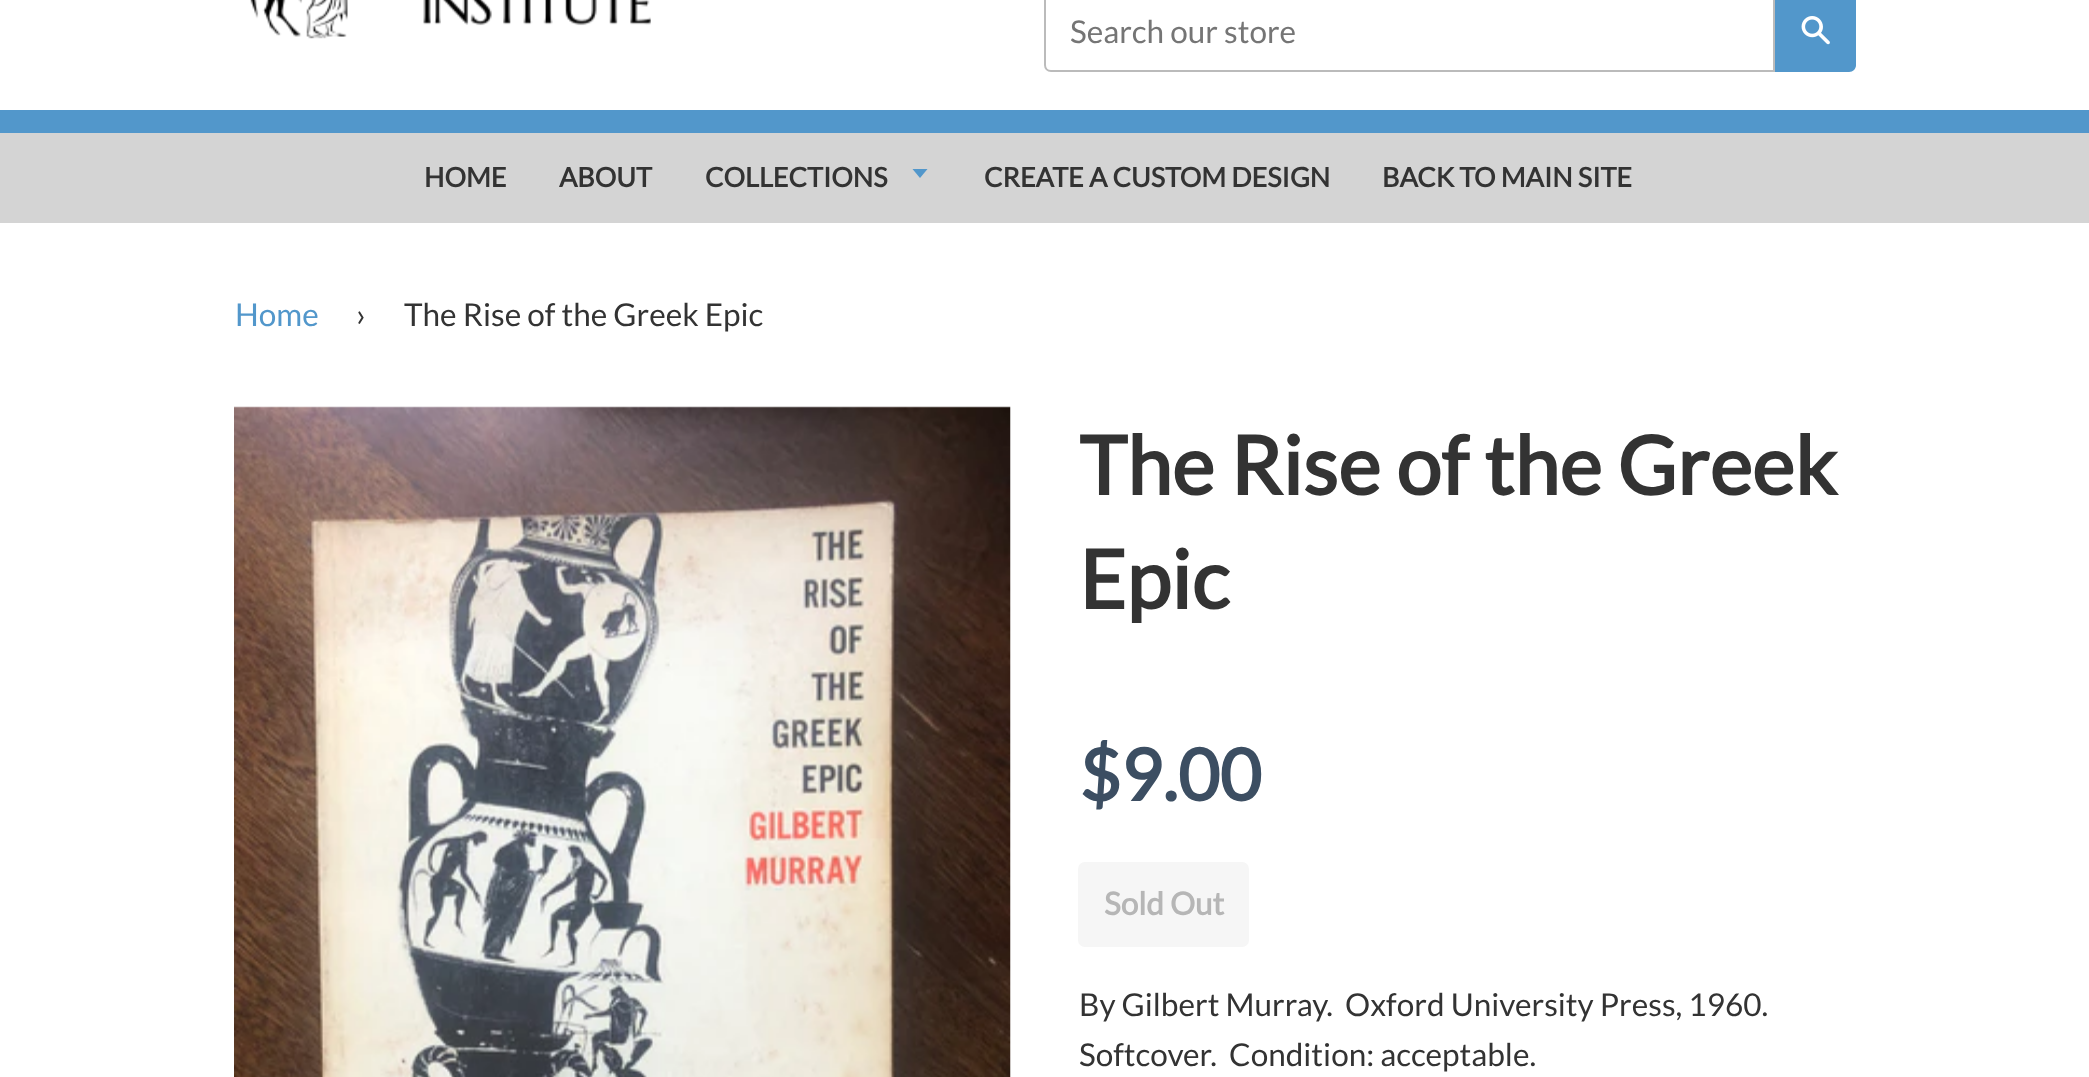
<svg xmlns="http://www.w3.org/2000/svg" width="2089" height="1077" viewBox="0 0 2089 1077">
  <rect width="100%" height="100%" fill="#fff"/>
  <image x="250" y="0" width="401" height="39" href="img/1.png"/>
  <path d="M1051-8H1774V71H1051C1047.5 71 1045 68.5 1045 65V-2C1045-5.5 1047.5-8 1051-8Z" fill="none" stroke="#bbb" stroke-width="2"/>
  <path d="M1775-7H1849C1853-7 1856-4 1856 0V65C1856 69 1853 72 1849 72H1775Z" fill="#5297cb"/>
  <image x="1801" y="16" width="29" height="29" href="img/2.png"/>
  <path d="M0 110h2089v23H0z" fill="#5297cb"/>
  <path d="M0 133h2089v90H0z" fill="#d4d4d4"/>
  <path d="M912.5 169L920 178L927.5 169Z" fill="#5297cb"/>
  <image x="234" y="406" width="777" height="671" href="img/3.png"/>
  <rect x="1078" y="862" width="171" height="85" rx="7" fill="#f6f6f6"/>
  <text x="1070" y="43" font-family="Lato" font-size="31.5" fill="#757575">Search our store</text>
  <g font-family="Lato" font-size="27" font-weight="bold" fill="#333">
    <text x="424" y="187">HOME</text>
    <text x="559" y="187">ABOUT</text>
    <text x="705" y="187">COLLECTIONS</text>
    <text x="984" y="187">CREATE A CUSTOM DESIGN</text>
    <text x="1382" y="187">BACK TO MAIN SITE</text>
  </g>
  <text x="235" y="326" font-family="Lato" font-size="31.5" fill="#5297cb">Home</text>
  <g font-family="Lato" font-size="31.5" fill="#333">
    <text x="356" y="326">›</text>
    <text x="404" y="326">The Rise of the Greek Epic</text>
  </g>
  <g font-family="Lato" font-size="81" font-weight="bold" fill="#333">
    <text x="1079" y="495">The Rise of the Greek</text>
    <text x="1079" y="609">Epic</text>
  </g>
  <text x="1079" y="801" font-family="Lato" font-size="72" font-weight="bold" fill="#3c4e62">$9.00</text>
  <text x="1104" y="915" font-family="Lato" font-size="31.5" font-weight="bold" fill="#b6b6b6">Sold Out</text>
  <g font-family="Lato" font-size="31.5" fill="#333">
    <text x="1079" y="1016" xml:space="preserve">By Gilbert Murray.  Oxford University Press, 1960.</text>
    <text x="1079" y="1066" xml:space="preserve">Softcover.  Condition: acceptable.</text>
  </g>
</svg>
